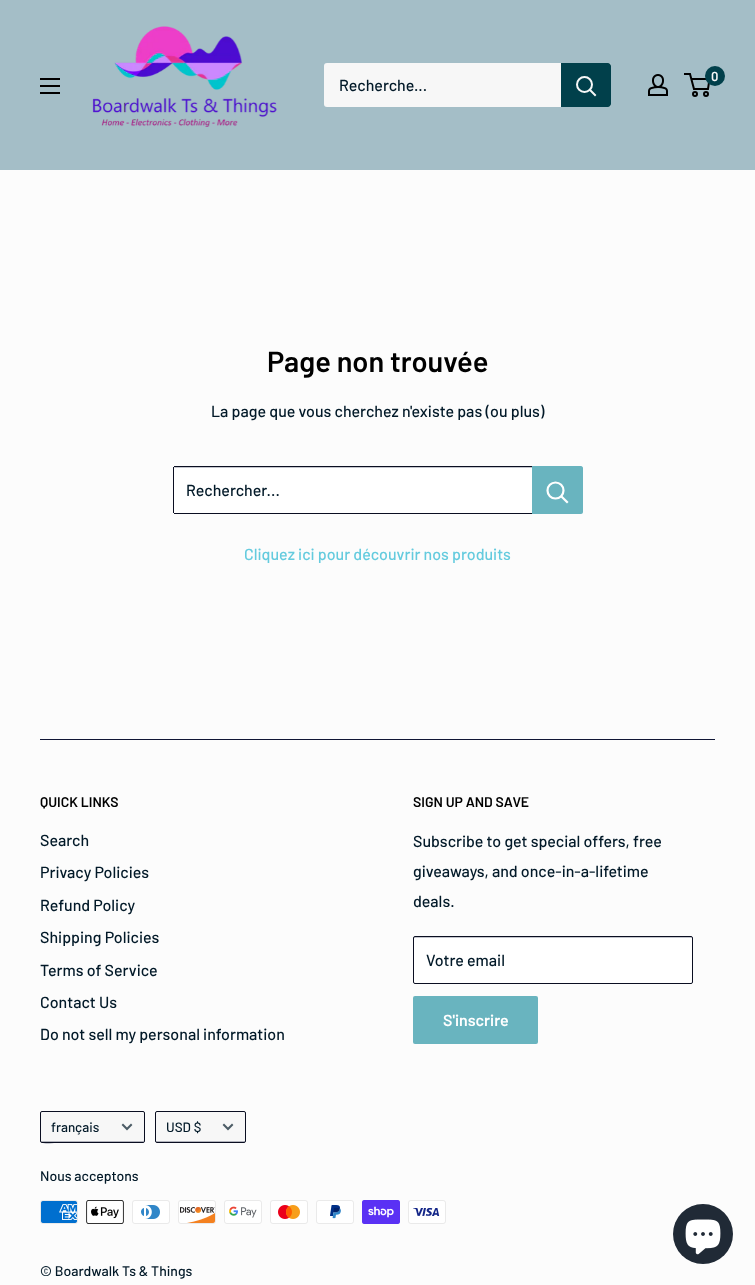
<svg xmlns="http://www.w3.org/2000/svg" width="755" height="1285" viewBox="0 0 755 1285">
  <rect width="100%" height="100%" fill="#fcfcfc"/>
  <path d="M0 0h755v170H0z" fill="#a4bec7"/>
  <image x="92" y="26" width="185" height="101" href="img/1.png"/>
  <image x="648" y="74" width="20" height="22" href="img/2.png"/>
  <circle cx="695" cy="94" r="2" fill="none" stroke="#000" stroke-width="2"/>
  <circle cx="706" cy="94" r="2" fill="none" stroke="#000" stroke-width="2"/>
  <path d="M691.5 79H709.5L708 89H694L690 74H684" fill="none" stroke="#000" stroke-width="2"/>
  <circle cx="715" cy="76" r="10" fill="#01404b"/>
  <image x="40" y="78" width="20" height="16" href="img/3.png"/>
  <rect x="324" y="63" width="287" height="44" rx="3" fill="#f7f7f7"/>
  <path d="M561 63H608C609.5 63 611 64.5 611 66V104C611 105.5 609.5 107 608 107H561Z" fill="#01404b"/>
  <path d="M595 95L590 90" fill="none" stroke="#f7f7f7" stroke-width="2" stroke-linecap="square"/>
  <circle cx="584.5" cy="84.5" r="7.5" fill="none" stroke="#f7f7f7" stroke-width="2"/>
  <path d="M175 466H532V514H175C174 514 173 513 173 512V468C173 467 174 466 175 466Z" fill="#fff"/>
  <path d="M175 468H532V467H175C174 467 174 468 174 469C174 468 174 468 175 468Z" fill="#c3c5cd"/>
  <path d="M174 466h358v1H174z" fill="#0a0e21"/>
  <path d="M174 513h358v1H174z" fill="#0a0e21"/>
  <path d="M173 467h1v46H173z" fill="#0a0e21"/>
  <path d="M532 466H581C582 466 583 467 583 468V512C583 513 582 514 581 514H532Z" fill="#69b4bf"/>
  <path d="M567 502L561.5 496.5" fill="none" stroke="#fff" stroke-width="2.2" stroke-linecap="square"/>
  <circle cx="555.5" cy="490.5" r="8" fill="none" stroke="#fff" stroke-width="2.2"/>
  <path d="M40 739h675v1H40z" fill="#101635"/>
  <rect x="413" y="936" width="280" height="48" rx="2" fill="#fff"/>
  <path d="M415 938H691C692 938 692 938 692 939C692 938 692 937 691 937H415H414V939C414 938 414 938 415 938Z" fill="#c3c5cd"/>
  <rect x="413.5" y="936.5" width="279" height="47" rx="1.5" fill="none" stroke="#0a0e21"/>
  <rect x="413" y="996" width="125" height="48" rx="2" fill="#69b4bf"/>
  <rect x="40" y="1111" width="105" height="32" rx="2" fill="#f7f7f7"/>
  <path d="M41 1140C41 1147 58 1142 59 1142H143L144 1140C144 1141 144 1141 143 1141H42C41 1141 41 1141 41 1140Z" fill="#1016354d"/>
  <rect x="40.5" y="1111.5" width="104" height="31" rx="1.5" fill="none" stroke="#0a0e21"/>
  <path d="M131 1125L127 1129L123 1125" fill="none" stroke="#4c5c66" stroke-width="2" stroke-linecap="square"/>
  <rect x="155" y="1111" width="91" height="32" rx="2" fill="#f7f7f7"/>
  <path d="M156 1140C156 1141 156 1142 157 1142H244C245 1142 245 1141 245 1140C245 1141 245 1141 244 1141H157C156 1141 156 1141 156 1140Z" fill="#b2b4bd"/>
  <rect x="155.5" y="1111.5" width="90" height="31" rx="1.5" fill="none" stroke="#0a0e21"/>
  <path d="M232 1125L228 1129L224 1125" fill="none" stroke="#4c5c66" stroke-width="2" stroke-linecap="square"/>
  <image x="40" y="1200" width="38" height="24" href="img/4.png"/>
  <image x="86" y="1200" width="38" height="24" href="img/5.png"/>
  <image x="132" y="1200" width="38" height="24" href="img/6.png"/>
  <image x="178" y="1200" width="38" height="24" href="img/7.png"/>
  <image x="224" y="1200" width="38" height="24" href="img/8.png"/>
  <image x="270" y="1200" width="38" height="24" href="img/9.png"/>
  <image x="316" y="1200" width="38" height="24" href="img/10.png"/>
  <image x="362" y="1200" width="38" height="24" href="img/11.png"/>
  <image x="408" y="1200" width="38" height="24" href="img/12.png"/>
  <circle cx="703" cy="1234" r="30" fill="#202a36"/>
  <image x="685" y="1219" width="36" height="36" href="img/13.png"/>
  <text x="711" y="81" font-family="Barlow" font-size="13" font-weight="600" fill="#f7f7f7">0</text>
  <text x="339" y="91" font-family="Barlow" font-size="16" font-weight="500" fill="#021928">Recherche...</text>
  <text x="267" y="372" font-family="Barlow" font-size="29" font-weight="600" fill="#000">Page non trouvée</text>
  <g font-family="Barlow" font-size="16" font-weight="500" fill="#021928">
    <text x="211" y="417">La page que vous cherchez n'existe pas (ou plus)</text>
    <text x="186" y="496">Rechercher...</text>
  </g>
  <text x="244" y="560" font-family="Barlow" font-size="16" font-weight="500" fill="#64cbde">Cliquez ici pour découvrir nos produits</text>
  <text x="40" y="807" font-family="Barlow" font-size="14" font-weight="600" fill="#000">QUICK LINKS</text>
  <g font-family="Barlow" font-size="16" font-weight="500" fill="#021928">
    <text x="40" y="846">Search</text>
    <text x="40" y="878">Privacy Policies</text>
    <text x="40" y="911">Refund Policy</text>
    <text x="40" y="943">Shipping Policies</text>
    <text x="40" y="976">Terms of Service</text>
    <text x="40" y="1008">Contact Us</text>
    <text x="40" y="1040">Do not sell my personal information</text>
  </g>
  <text x="413" y="807" font-family="Barlow" font-size="14" font-weight="600" fill="#000">SIGN UP AND SAVE</text>
  <g font-family="Barlow" font-size="16" font-weight="500" fill="#021928">
    <text x="413" y="847">Subscribe to get special offers, free</text>
    <text x="413" y="877">giveaways, and once-in-a-lifetime</text>
    <text x="413" y="907">deals.</text>
    <text x="426" y="966">Votre email</text>
  </g>
  <text x="443" y="1026" font-family="Barlow" font-size="16" font-weight="600" fill="#fff">S'inscrire</text>
  <g font-family="Barlow" font-size="13.5" font-weight="500" fill="#021928">
    <text x="51" y="1132">français</text>
    <text x="166" y="1132">USD $</text>
  </g>
  <g font-family="Barlow" font-size="14" font-weight="500" fill="#021928">
    <text x="40" y="1181">Nous acceptons</text>
    <text x="40" y="1276">© Boardwalk Ts &amp; Things</text>
  </g>
</svg>
